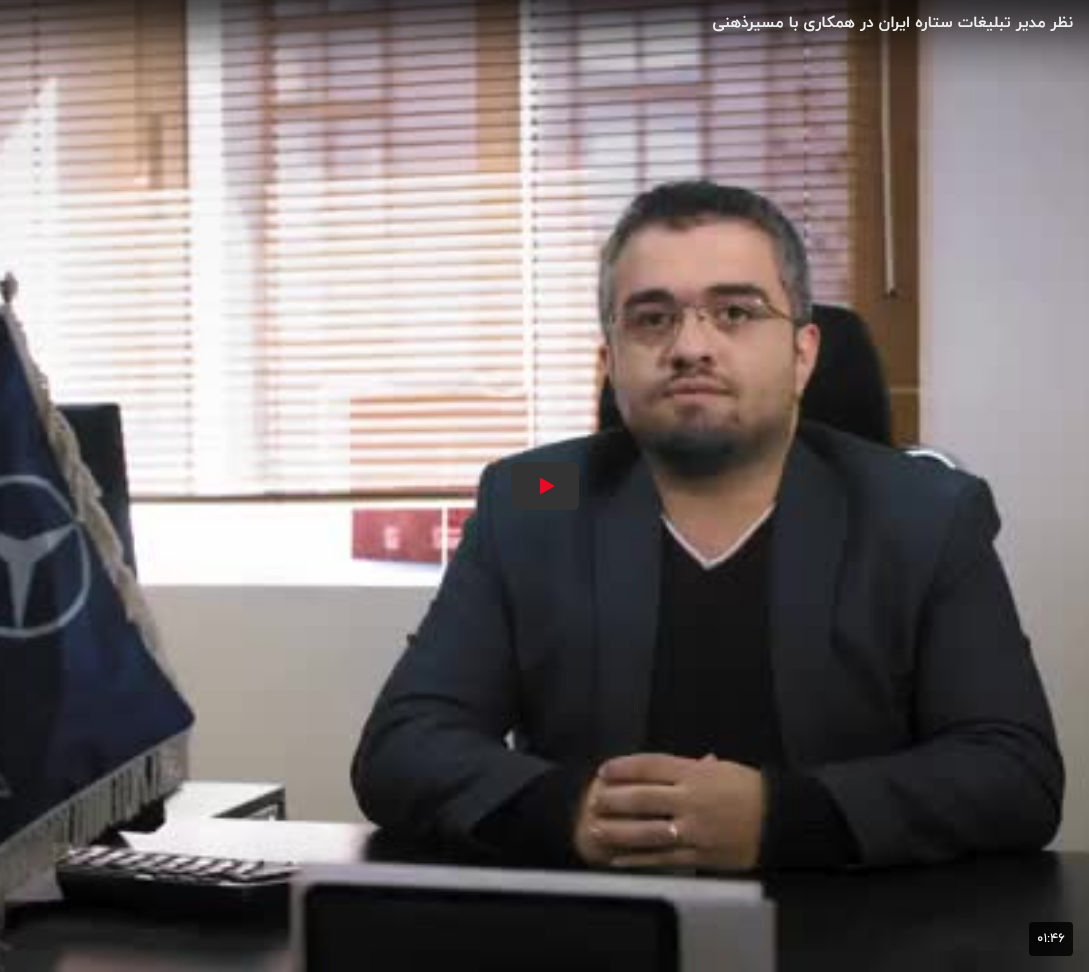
<svg xmlns="http://www.w3.org/2000/svg" width="1089" height="972" viewBox="0 0 1089 972">
  <rect width="100%" height="100%" fill="#fff"/>
  <image x="0" y="0" width="1089" height="972" href="img/1.png"/>
  <image x="0" y="0" width="1089" height="82" href="img/2.png"/>
  <rect x="511" y="462" width="68" height="48" rx="6" fill="#333"/>
  <image x="539" y="478" width="15" height="16" href="img/3.png"/>
  <rect x="1029" y="922" width="44" height="34" rx="4" fill="#000000cc"/>
  <text x="1073" y="27" font-family="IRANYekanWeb" font-size="16" font-weight="bold" direction="rtl" fill="#eee">نظر مدیر تبلیغات ستاره ایران در همکاری با مسیرذهنی</text>
  <text x="1037" y="942" font-family="IRANYekanWeb" font-size="13" fill="#fff">۰۱:۴۶</text>
</svg>
